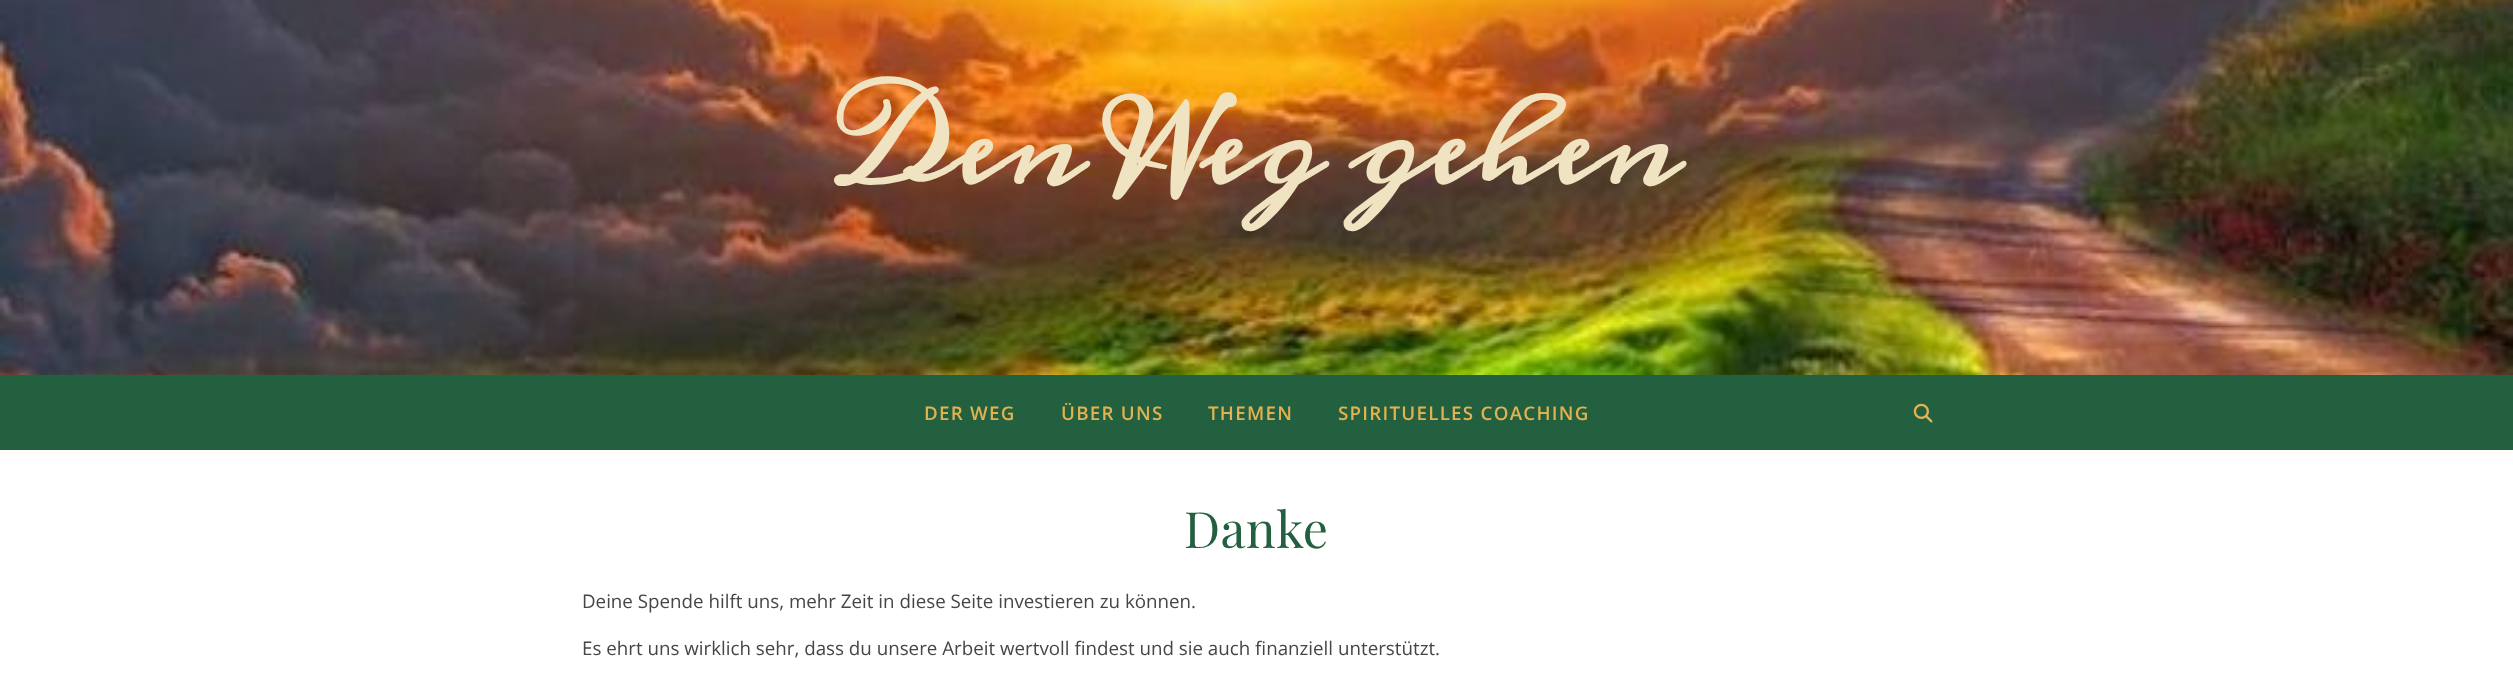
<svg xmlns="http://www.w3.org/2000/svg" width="2513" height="683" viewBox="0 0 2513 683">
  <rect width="100%" height="100%" fill="#fff"/>
  <image x="0" y="0" width="2513" height="375" href="img/1.png"/>
  <path d="M0 376h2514v75H0z" fill="#e2b2511a" filter="blur(3px)"/>
  <path d="M0 375h2513v75H0z" fill="#236040"/>
  <image x="1913" y="403" width="20" height="20" href="img/2.png"/>
  <text x="834" y="184" font-family="Meddon" font-size="100" font-weight="bold" letter-spacing="-1.25" fill="#efe3c2">Den Weg gehen</text>
  <g font-family="Open Sans" font-size="18.75" font-weight="600" letter-spacing="1.25" fill="#e2b251">
    <text x="924" y="420">DER WEG</text>
    <text x="1061" y="420">ÜBER UNS</text>
    <text x="1208" y="420">THEMEN</text>
    <text x="1338" y="420">SPIRITUELLES COACHING</text>
  </g>
  <text x="1184" y="548" font-family="Playfair Display" font-size="50" letter-spacing="0.5" fill="#236040">Danke</text>
  <g font-family="Open Sans" font-size="18.75" fill="#464646">
    <text x="582" y="608">Deine Spende hilft uns, mehr Zeit in diese Seite investieren zu können.</text>
    <text x="582" y="655">Es ehrt uns wirklich sehr, dass du unsere Arbeit wertvoll findest und sie auch finanziell unterstützt.</text>
  </g>
</svg>
